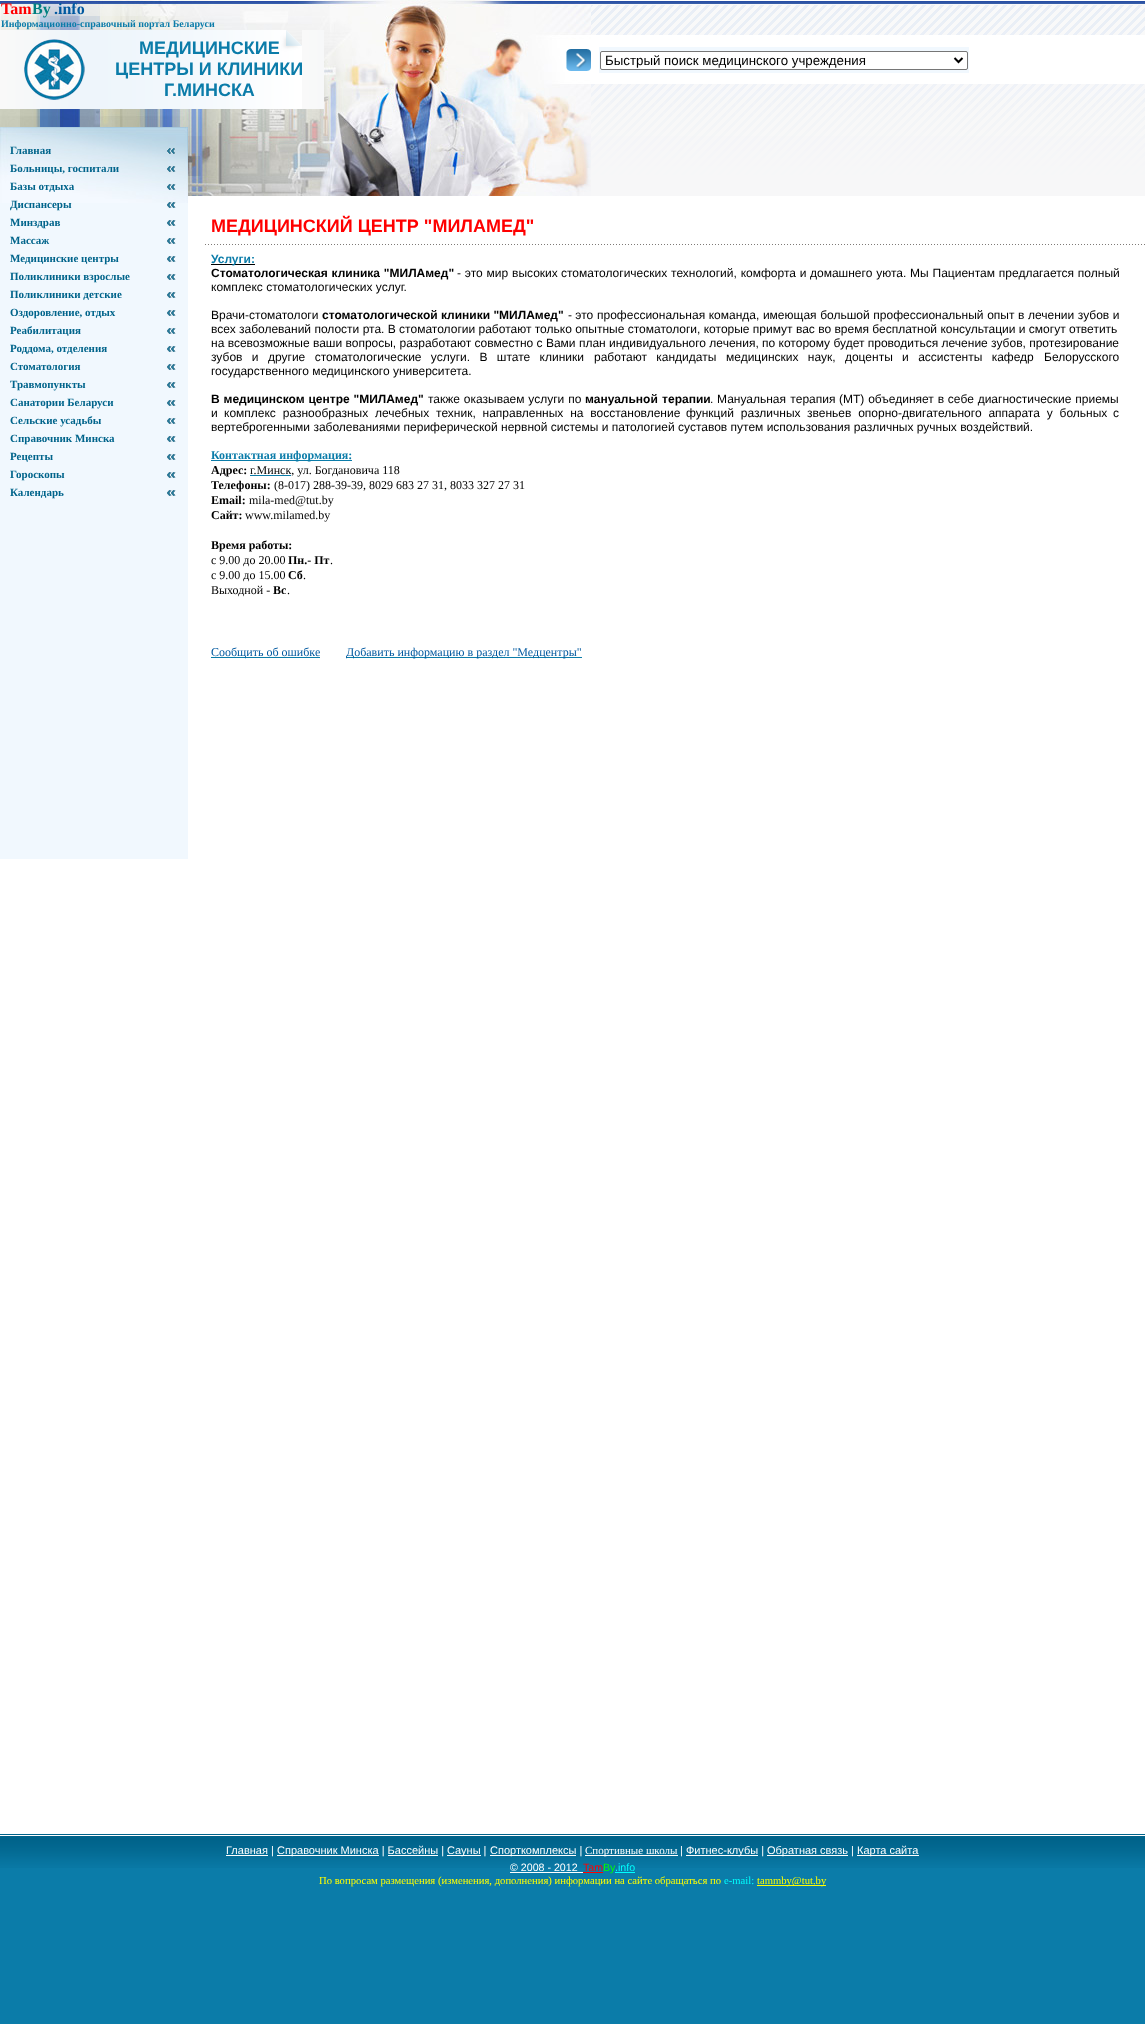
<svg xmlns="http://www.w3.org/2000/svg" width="1145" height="2024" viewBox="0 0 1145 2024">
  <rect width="100%" height="100%" fill="#fff"/>
  <image x="0" y="0" width="591" height="196" href="img/1.png"/>
  <image x="566" y="49" width="25" height="22" href="img/2.png"/>
  <image x="591" y="1" width="554" height="195" href="img/5.png"/>
  <path d="M599 47h370v26H599z" fill="#f1f8fe"/>
  <rect x="600.5" y="51.5" width="367" height="18" rx="1.5" fill="#fff" stroke="#767676"/>
  <path d="M954.5 58L958.5 62L962.5 58" fill="none" stroke="#000" stroke-width="2"/>
  <image x="0" y="30" width="324" height="79" href="img/3.png"/>
  <image x="24" y="39" width="61" height="61" href="img/4.png"/>
  <path d="M0 203h188v656H0z" fill="#f1f8fe"/>
  <image x="0" y="127" width="188" height="76" href="img/6.png"/>
  <image x="167" y="148" width="9" height="6" href="img/7.png"/>
  <image x="167" y="166" width="9" height="6" href="img/8.png"/>
  <image x="167" y="184" width="9" height="6" href="img/9.png"/>
  <image x="167" y="202" width="9" height="6" href="img/10.png"/>
  <image x="167" y="220" width="9" height="6" href="img/11.png"/>
  <image x="167" y="238" width="9" height="6" href="img/11.png"/>
  <image x="167" y="256" width="9" height="6" href="img/11.png"/>
  <image x="167" y="274" width="9" height="6" href="img/11.png"/>
  <image x="167" y="292" width="9" height="6" href="img/11.png"/>
  <image x="167" y="310" width="9" height="6" href="img/11.png"/>
  <image x="167" y="328" width="9" height="6" href="img/11.png"/>
  <image x="167" y="346" width="9" height="6" href="img/11.png"/>
  <image x="167" y="364" width="9" height="6" href="img/11.png"/>
  <image x="167" y="382" width="9" height="6" href="img/11.png"/>
  <image x="167" y="400" width="9" height="6" href="img/11.png"/>
  <image x="167" y="418" width="9" height="6" href="img/11.png"/>
  <image x="167" y="436" width="9" height="6" href="img/11.png"/>
  <image x="167" y="454" width="9" height="6" href="img/11.png"/>
  <image x="167" y="472" width="9" height="6" href="img/11.png"/>
  <image x="167" y="490" width="9" height="6" href="img/11.png"/>
  <image x="203" y="244" width="942" height="1" href="img/12.png"/>
  <path d="M211 264h44v1H211z" fill="#000"/>
  <path d="M211 460h141v1H211z" fill="#0b7ca9"/>
  <path d="M250 475h41v1H250z" fill="#0b7ca9"/>
  <path d="M211 657h109v1H211z" fill="#0b7ca9"/>
  <path d="M346 657h236v1H346z" fill="#0b7ca9"/>
  <path d="M0 1868h1145v156H0z" fill="#0b7ca9"/>
  <image x="0" y="1834" width="1145" height="34" href="img/13.png"/>
  <path d="M226 1855h42v1H226z" fill="#fff"/>
  <path d="M277 1855h102v1H277z" fill="#fff"/>
  <path d="M447 1855h34v1H447z" fill="#fff"/>
  <path d="M490 1855h86v1H490z" fill="#fff"/>
  <path d="M585 1855h93v1H585z" fill="#fff"/>
  <path d="M686 1855h72v1H686z" fill="#fff"/>
  <path d="M767 1855h81v1H767z" fill="#fff"/>
  <path d="M857 1855h62v1H857z" fill="#fff"/>
  <path d="M388 1855h50v1H388z" fill="#fff"/>
  <path d="M510 1872h73v1H510z" fill="#fff"/>
  <path d="M583 1872h20v1H583z" fill="#f00"/>
  <path d="M757 1885h69v1H757z" fill="#ff0"/>
  <text x="1" y="14" font-family="Liberation Serif" font-size="16" font-weight="bold" fill="#f00">Tam</text>
  <text x="32" y="14" font-family="Liberation Serif" font-size="16" font-weight="bold" fill="#008080">By</text>
  <text x="54" y="14" font-family="Liberation Serif" font-size="16" font-weight="bold" fill="#00589f">.info</text>
  <text x="1" y="27" font-family="Liberation Serif" font-size="10" font-weight="bold" fill="#0b7ca9">Информационно-справочный портал Беларуси</text>
  <text x="605" y="65" font-family="Liberation Sans" font-size="13.3" fill="#000">Быстрый поиск медицинского учреждения</text>
  <g font-family="Liberation Sans" font-size="18" font-weight="bold" fill="#0b7ca9">
    <text x="139" y="54">МЕДИЦИНСКИЕ</text>
    <text x="115" y="75">ЦЕНТРЫ И КЛИНИКИ</text>
    <text x="164" y="96">Г.МИНСКА</text>
  </g>
  <g font-family="Liberation Serif" font-size="11" font-weight="bold" fill="#00648b">
    <text x="10" y="154">Главная</text>
    <text x="10" y="172">Больницы, госпитали</text>
    <text x="10" y="190">Базы отдыха</text>
    <text x="10" y="208">Диспансеры</text>
    <text x="10" y="226">Минздрав</text>
    <text x="10" y="244">Массаж</text>
    <text x="10" y="262">Медицинские центры</text>
    <text x="10" y="280">Поликлиники взрослые</text>
    <text x="10" y="298">Поликлиники детские</text>
    <text x="10" y="316">Оздоровление, отдых</text>
    <text x="10" y="334">Реабилитация</text>
    <text x="10" y="352">Роддома, отделения</text>
    <text x="10" y="370">Стоматология</text>
    <text x="10" y="388">Травмопункты</text>
    <text x="10" y="406">Санатории Беларуси</text>
    <text x="10" y="424">Сельские усадьбы</text>
    <text x="10" y="442">Справочник Минска</text>
    <text x="10" y="460">Рецепты</text>
    <text x="10" y="478">Гороскопы</text>
    <text x="10" y="496">Календарь</text>
  </g>
  <text x="211" y="232" font-family="Liberation Sans" font-size="18" font-weight="bold" fill="#f00">МЕДИЦИНСКИЙ ЦЕНТР "МИЛАМЕД"</text>
  <text x="211" y="263" font-family="Liberation Sans" font-size="12" font-weight="bold" fill="#0b7ca9">Услуги:</text>
  <text x="211" y="277" word-spacing="0.5" font-family="Liberation Sans" font-size="12" font-weight="bold" fill="#000">Стоматологическая клиника "МИЛАмед"</text>
  <g font-family="Liberation Sans" font-size="12" fill="#000">
    <text x="457" y="277" word-spacing="0.5">- это мир</text>
    <text x="512" y="277">высоких</text>
    <text x="561" y="277" word-spacing="0.5">стоматологических технологий, комфорта и</text>
    <text x="810" y="277" word-spacing="0.5">домашнего уюта. Мы Пациентам предлагается полный</text>
    <text x="211" y="291">комплекс стоматологических услуг.</text>
    <text x="211" y="319">Врачи-стоматологи</text>
  </g>
  <text x="322" y="319" font-family="Liberation Sans" font-size="12" font-weight="bold" fill="#000">стоматологической клиники "МИЛАмед"</text>
  <g font-family="Liberation Sans" font-size="12" fill="#000">
    <text x="568" y="319">- это</text>
    <text x="597" y="319" word-spacing="0.25">профессиональная команда, имеющая большой профессиональный опыт в лечении зубов и</text>
    <text x="211" y="333">всех заболеваний полости рта. В стоматологии работают только опытные стоматологи, которые примут вас во время бесплатной консультации и смогут ответить</text>
    <text x="211" y="347">на всевозможные ваши вопросы, разработают совместно с Вами план индивидуального лечения, по которому будет проводиться лечение зубов, протезирование</text>
    <text x="211" y="361" word-spacing="6">зубов и</text>
    <text x="268" y="361" word-spacing="6">другие стоматологические услуги. В штате клиники</text>
    <text x="594" y="361" word-spacing="6">работают кандидаты</text>
    <text x="726" y="361" word-spacing="6">медицинских наук, доценты и ассистенты кафедр</text>
    <text x="1044" y="361">Белорусского</text>
    <text x="211" y="375">государственного медицинского университета.</text>
  </g>
  <text x="211" y="403" word-spacing="0.5" font-family="Liberation Sans" font-size="12" font-weight="bold" fill="#000">В медицинском центре "МИЛАмед"</text>
  <text x="428" y="403" word-spacing="0.5" font-family="Liberation Sans" font-size="12" fill="#000">также оказываем услуги по</text>
  <text x="585" y="403" word-spacing="1" font-family="Liberation Sans" font-size="12" font-weight="bold" fill="#000">мануальной терапии</text>
  <g font-family="Liberation Sans" font-size="12" fill="#000">
    <text x="710" y="403">.</text>
    <text x="717" y="403" word-spacing="1">Мануальная терапия</text>
    <text x="839" y="403" word-spacing="0.5">(МТ) объединяет в себе диагностические приемы</text>
    <text x="211" y="417">и</text>
    <text x="224" y="417" word-spacing="3.5">комплекс разнообразных</text>
    <text x="375" y="417" word-spacing="3.5">лечебных техник, направленных на восстановление</text>
    <text x="686" y="417" word-spacing="3.5">функций различных</text>
    <text x="807" y="417" word-spacing="3.5">звеньев опорно-двигательного аппарата у больных</text>
    <text x="1113" y="417">с</text>
    <text x="211" y="431">вертеброгенными заболеваниями периферической нервной системы и патологией суставов путем использования различных ручных воздействий.</text>
  </g>
  <text x="211" y="459" font-family="Liberation Serif" font-size="12" font-weight="bold" fill="#0b7ca9">Контактная информация:</text>
  <text x="211" y="474" font-family="Liberation Serif" font-size="12" font-weight="bold" fill="#000">Адрес:</text>
  <text x="250" y="474" font-family="Liberation Serif" font-size="12" fill="#000">г.Минск, ул. Богдановича 118</text>
  <text x="211" y="489" font-family="Liberation Serif" font-size="12" font-weight="bold" fill="#000">Телефоны:</text>
  <text x="274" y="489" font-family="Liberation Serif" font-size="12" fill="#000">(8-017) 288-39-39, 8029 683 27 31, 8033 327 27 31</text>
  <text x="211" y="504" font-family="Liberation Serif" font-size="12" font-weight="bold" fill="#000">Email:</text>
  <text x="249" y="504" font-family="Liberation Serif" font-size="12" fill="#000">mila-med@tut.by</text>
  <text x="211" y="519" font-family="Liberation Serif" font-size="12" font-weight="bold" fill="#000">Сайт:</text>
  <text x="245" y="519" font-family="Liberation Serif" font-size="12" fill="#000">www.milamed.by</text>
  <text x="211" y="549" font-family="Liberation Serif" font-size="12" font-weight="bold" fill="#000">Время работы:</text>
  <text x="211" y="564" font-family="Liberation Serif" font-size="12" fill="#000">с 9.00 до 20.00</text>
  <text x="288" y="564" font-family="Liberation Serif" font-size="12" font-weight="bold" fill="#000">Пн.- Пт</text>
  <g font-family="Liberation Serif" font-size="12" fill="#000">
    <text x="330" y="564">.</text>
    <text x="211" y="579">с 9.00 до 15.00</text>
  </g>
  <text x="288" y="579" font-family="Liberation Serif" font-size="12" font-weight="bold" fill="#000">Сб</text>
  <g font-family="Liberation Serif" font-size="12" fill="#000">
    <text x="303" y="579">.</text>
    <text x="211" y="594">Выходной -</text>
  </g>
  <text x="273" y="594" font-family="Liberation Serif" font-size="12" font-weight="bold" fill="#000">Вс</text>
  <text x="287" y="594" font-family="Liberation Serif" font-size="12" fill="#000">.</text>
  <g font-family="Liberation Serif" font-size="12" fill="#00589f">
    <text x="211" y="656">Сообщить об ошибке</text>
    <text x="346" y="656">Добавить информацию в раздел "Медцентры"</text>
  </g>
  <g font-family="Liberation Sans" font-size="11" fill="#fff">
    <text x="226" y="1854">Главная |</text>
    <text x="277" y="1854">Справочник Минска | Бассейны |</text>
    <text x="447" y="1854">Сауны |</text>
    <text x="490" y="1854">Спорткомплексы |</text>
  </g>
  <text x="585" y="1854" font-family="Liberation Serif" font-size="11" fill="#fff">Спортивные школы</text>
  <g font-family="Liberation Sans" font-size="11" fill="#fff">
    <text x="680" y="1854">|</text>
    <text x="686" y="1854">Фитнес-клубы |</text>
    <text x="767" y="1854">Обратная связь |</text>
    <text x="857" y="1854">Карта сайта</text>
  </g>
  <text x="510" y="1871" font-family="Liberation Sans" font-size="10.65" fill="#fff">© 2008 - 2012</text>
  <text x="583" y="1871" font-family="Liberation Sans" font-size="10.65" fill="#f00">Tam</text>
  <text x="603" y="1871" font-family="Liberation Sans" font-size="10.65" fill="#0f0">By</text>
  <path d="M615 1872h20v1H615z" fill="#0ff"/>
  <text x="615" y="1871" font-family="Liberation Sans" font-size="10.65" fill="#0ff">.info</text>
  <text x="319" y="1884" font-family="Liberation Serif" font-size="10.65" fill="#ff0">По вопросам размещения (изменения, дополнения) информации на сайте обращаться по</text>
  <text x="724" y="1884" font-family="Liberation Serif" font-size="10.65" fill="#0ff">e-mail:</text>
  <text x="757" y="1884" font-family="Liberation Serif" font-size="10.65" fill="#ff0">tammby@tut.by</text>
</svg>
